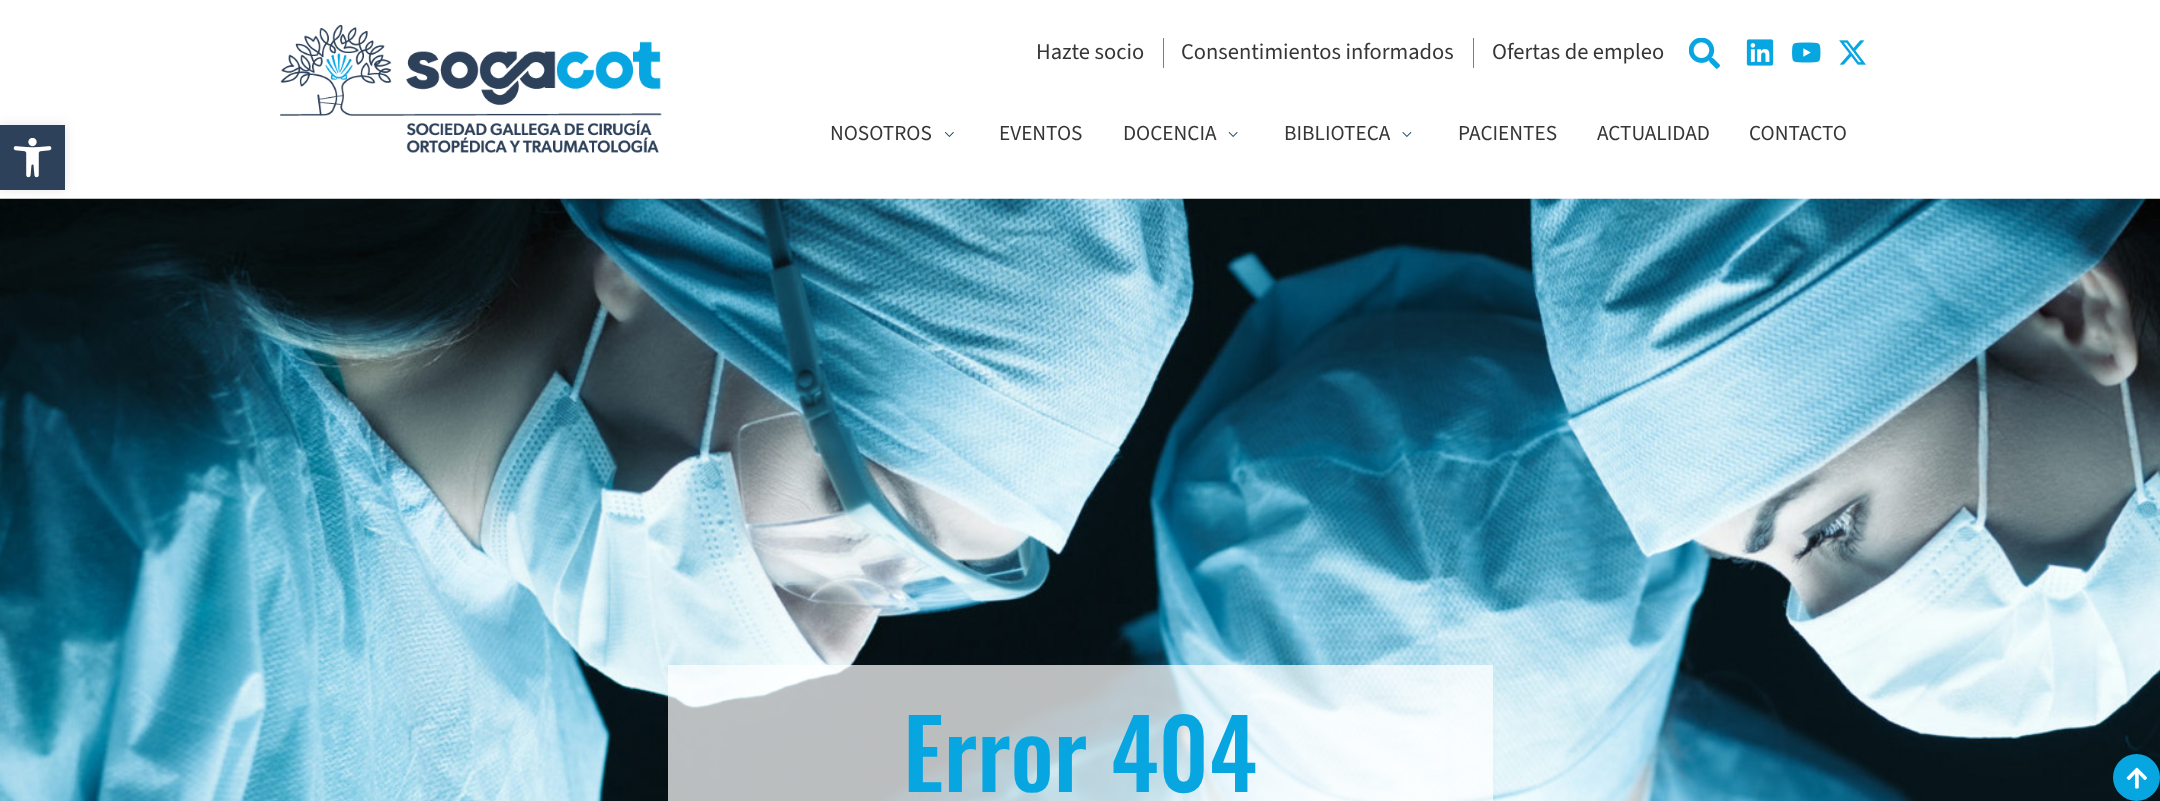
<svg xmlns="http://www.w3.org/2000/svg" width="2160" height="801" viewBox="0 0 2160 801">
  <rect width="100%" height="100%" fill="#fff"/>
  <image x="280" y="25" width="382" height="128" href="img/1.png"/>
  <path d="M1163 38h1v30H1163z" fill="#08a6e1"/>
  <path d="M1473 38h1v30H1473z" fill="#08a6e1"/>
  <image x="1689" y="38" width="31" height="31" href="img/2.png"/>
  <image x="1746" y="39" width="28" height="27" href="img/3.png"/>
  <image x="1792" y="42" width="29" height="21" href="img/4.png"/>
  <image x="1839" y="40" width="27" height="25" href="img/5.png"/>
  <image x="944" y="132" width="10" height="5" href="img/6.png"/>
  <image x="1228" y="132" width="10" height="5" href="img/7.png"/>
  <image x="1402" y="132" width="10" height="5" href="img/8.png"/>
  <image x="0" y="198" width="2160" height="603" href="img/10.png"/>
  <path d="M0 125h65v65H0z" fill="#0000001a" filter="blur(6px)"/>
  <path d="M0 125h65v65H0z" fill="#2d415a"/>
  <image x="13" y="138" width="39" height="40" href="img/9.png"/>
  <path d="M668 665h825v136H668z" fill="#ffffffba"/>
  <circle cx="2136.5" cy="777.5" r="23.5" fill="#08a6e1"/>
  <image x="2126" y="767" width="21" height="22" href="img/11.png"/>
  <g font-family="'Source Sans 3'" font-size="22.5" fill="#363636">
    <text x="1036" y="59">Hazte socio</text>
    <text x="1181" y="59">Consentimientos informados</text>
    <text x="1492" y="59">Ofertas de empleo</text>
  </g>
  <g font-family="'Source Sans 3'" font-size="21.25" fill="#363636">
    <text x="830" y="140">NOSOTROS</text>
    <text x="999" y="140">EVENTOS</text>
    <text x="1123" y="140">DOCENCIA</text>
    <text x="1284" y="140">BIBLIOTECA</text>
    <text x="1458" y="140">PACIENTES</text>
    <text x="1597" y="140">ACTUALIDAD</text>
    <text x="1749" y="140">CONTACTO</text>
  </g>
  <text x="903" y="792" font-family="Oswald" font-size="95" font-weight="500" fill="#08a6e1">Error 404</text>
</svg>
